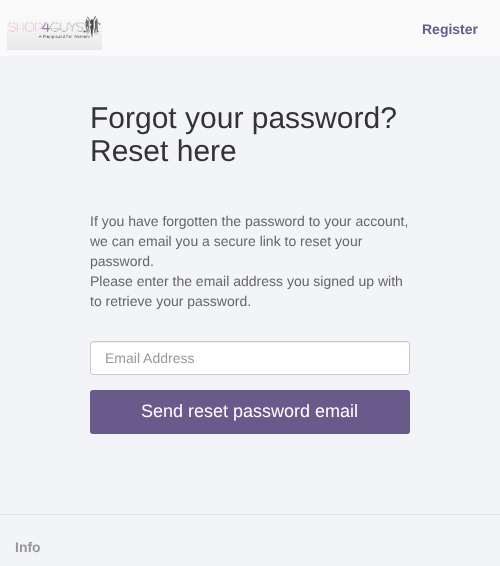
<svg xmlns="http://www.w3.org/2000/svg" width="500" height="566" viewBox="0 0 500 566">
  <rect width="100%" height="100%" fill="#f2f4f7"/>
  <path d="M0 0h500v56H0z" fill="#fafafa"/>
  <image x="7" y="16" width="95" height="34" href="img/1.png"/>
  <rect x="90" y="341" width="320" height="34" rx="3" fill="#fff"/>
  <path d="M93 343H407C408 343 409 344 409 345C409 344 409 342 407 342H92L91 343V345C91 344 92 343 93 343Z" fill="#ececec"/>
  <rect x="90.5" y="341.5" width="319" height="33" rx="2.5" fill="none" stroke="#ccc"/>
  <rect x="90" y="390" width="320" height="44" rx="3" fill="#6a5a8c"/>
  <path d="M0 514h500v1H0z" fill="#e3e3e3"/>
  <text x="422" y="34" font-family="Liberation Sans" font-size="14" font-weight="bold" fill="#6a5a8c">Register</text>
  <g font-family="Liberation Sans" font-size="30" fill="#333">
    <text x="90" y="128">Forgot your password?</text>
    <text x="90" y="161">Reset here</text>
  </g>
  <g font-family="Liberation Sans" font-size="14" fill="#666">
    <text x="90" y="226">If you have forgotten the password to your account,</text>
    <text x="90" y="246">we can email you a secure link to reset your</text>
    <text x="90" y="266">password.</text>
    <text x="90" y="286">Please enter the email address you signed up with</text>
    <text x="90" y="306">to retrieve your password.</text>
  </g>
  <text x="105" y="363" font-family="Liberation Sans" font-size="14" fill="#999">Email Address</text>
  <text x="141" y="417" font-family="Liberation Sans" font-size="18" fill="#fff">Send reset password email</text>
  <text x="15" y="552" font-family="Liberation Sans" font-size="14" font-weight="bold" fill="#999">Info</text>
</svg>
